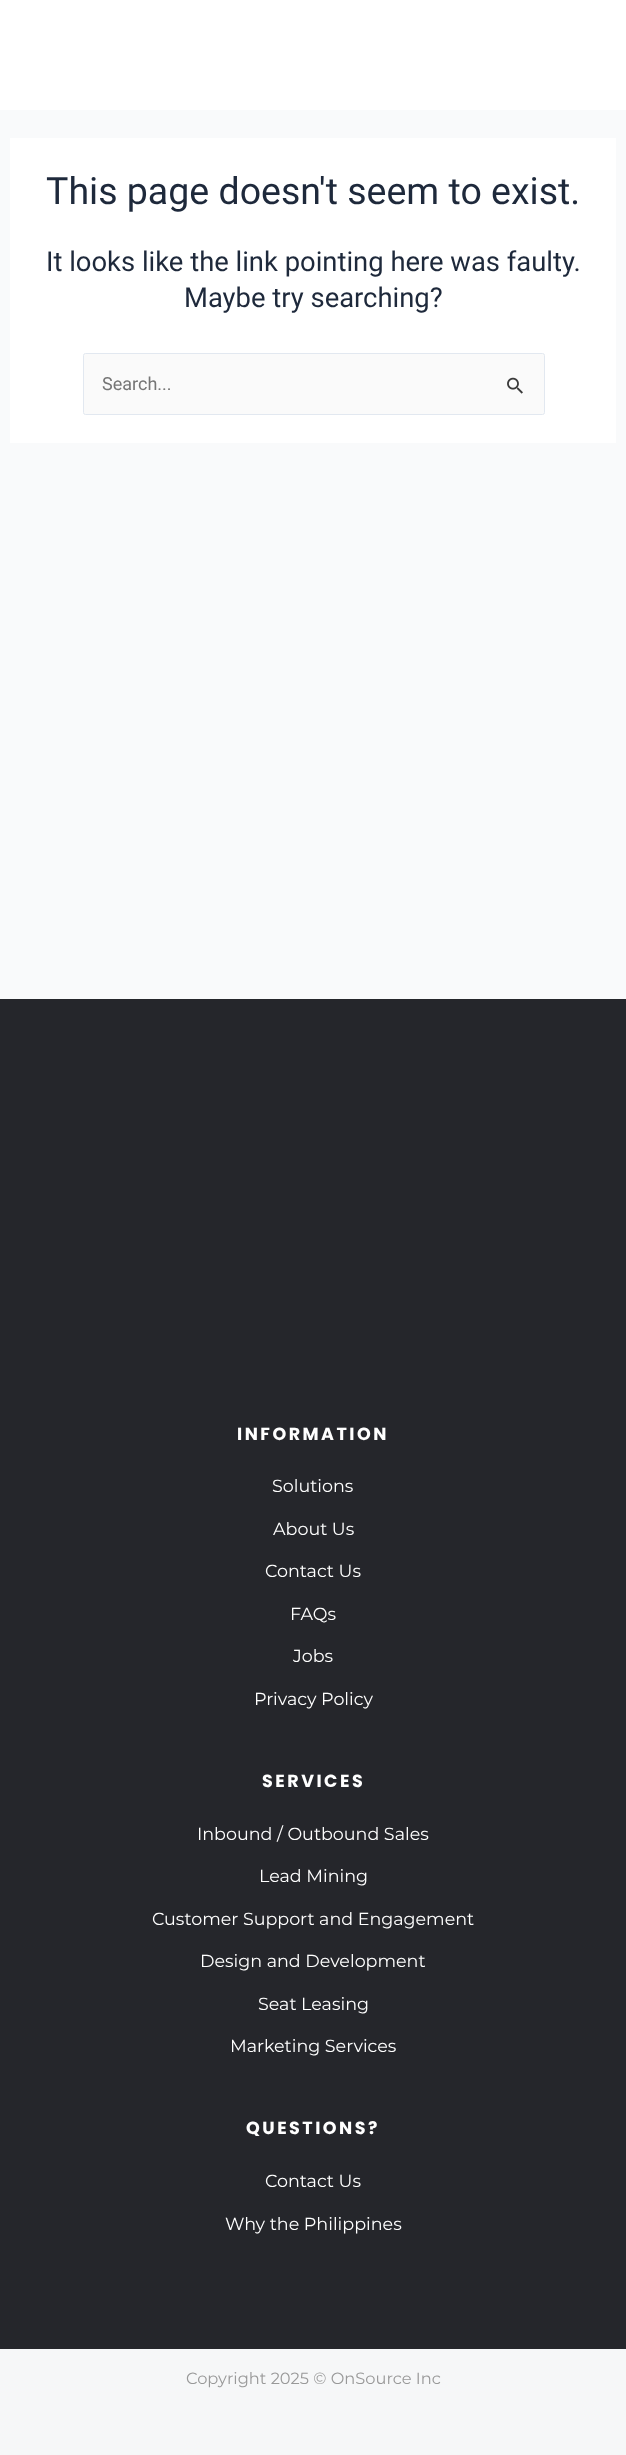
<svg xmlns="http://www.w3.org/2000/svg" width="626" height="2455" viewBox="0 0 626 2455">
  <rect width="100%" height="100%" fill="#f9fafb"/>
  <path d="M0 0h626v110H0z" fill="#fff"/>
  <path d="M10 138h606v305H10z" fill="#fff"/>
  <rect x="83.5" y="353.5" width="461" height="61" rx="2" fill="#fafafa" stroke="#e2e8f0"/>
  <image x="507" y="377" width="16" height="17" href="img/1.png"/>
  <path d="M0 999h626v1350H0z" fill="#25262b"/>
  <path d="M0 2349h626v106H0z" fill="#f6f7f8"/>
  <text x="46" y="204" font-family="Roboto" font-size="37.5" fill="#1e293b">This page doesn't seem to exist.</text>
  <g font-family="Roboto" font-size="27.4" fill="#1e293b">
    <text x="46" y="271">It looks like the link pointing here was faulty.</text>
    <text x="184" y="307">Maybe try searching?</text>
  </g>
  <text x="102" y="390" font-family="Roboto" font-size="18" fill="#757575">Search...</text>
  <text x="237" y="1440" font-family="Poppins" font-size="17.5" font-weight="bold" letter-spacing="2.5" fill="#fff">INFORMATION</text>
  <g font-family="Montserrat" font-size="17.5" fill="#fff">
    <text x="272" y="1492">Solutions</text>
    <text x="273" y="1535">About Us</text>
    <text x="265" y="1577">Contact Us</text>
    <text x="290" y="1620">FAQs</text>
    <text x="293" y="1662">Jobs</text>
    <text x="254" y="1705">Privacy Policy</text>
  </g>
  <text x="262" y="1787" font-family="Poppins" font-size="17.5" font-weight="bold" letter-spacing="2.5" fill="#fff">SERVICES</text>
  <g font-family="Montserrat" font-size="17.5" fill="#fff">
    <text x="197" y="1840">Inbound / Outbound Sales</text>
    <text x="259" y="1882">Lead Mining</text>
    <text x="152" y="1925">Customer Support and Engagement</text>
    <text x="200" y="1967">Design and Development</text>
    <text x="258" y="2010">Seat Leasing</text>
    <text x="230" y="2052">Marketing Services</text>
  </g>
  <text x="246" y="2134" font-family="Poppins" font-size="17.5" font-weight="bold" letter-spacing="2.5" fill="#fff">QUESTIONS?</text>
  <g font-family="Montserrat" font-size="17.5" fill="#fff">
    <text x="265" y="2187">Contact Us</text>
    <text x="225" y="2230">Why the Philippines</text>
  </g>
  <text x="186" y="2384" font-family="Montserrat" font-size="16.25" fill="#999">Copyright 2025 © OnSource Inc</text>
</svg>
